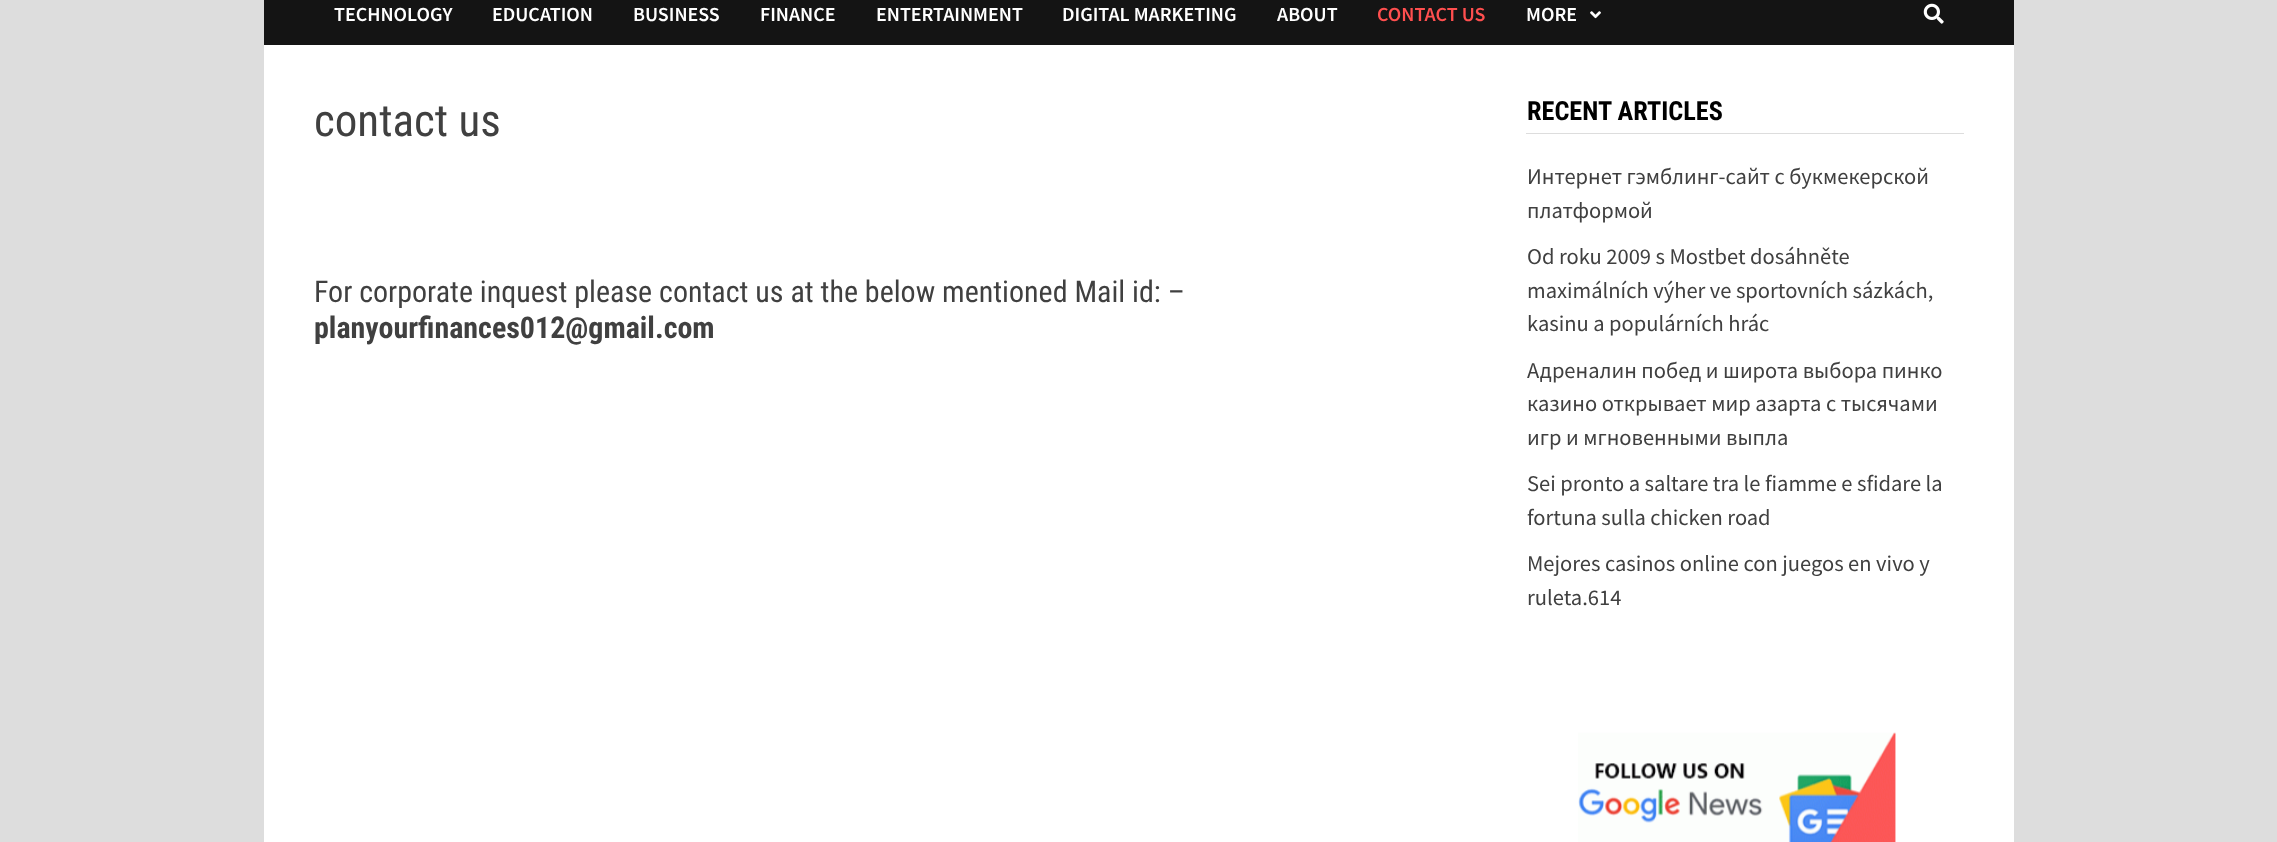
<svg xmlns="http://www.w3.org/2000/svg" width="2277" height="842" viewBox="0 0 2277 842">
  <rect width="100%" height="100%" fill="#ddd"/>
  <path d="M264 45h1750v797H264z" fill="#fff"/>
  <path d="M264 0h1750v45H264z" fill="#141414"/>
  <image x="1590" y="11" width="11" height="8" href="img/1.png"/>
  <image x="1923" y="3" width="21" height="21" href="img/2.png"/>
  <path d="M1526 133h438v1H1526z" fill="#ddd"/>
  <image x="1578" y="732" width="318" height="110" href="img/3.png"/>
  <g font-family="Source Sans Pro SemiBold" font-size="20" font-weight="600" fill="#fff">
    <text x="334" y="21">TECHNOLOGY</text>
    <text x="492" y="21">EDUCATION</text>
    <text x="633" y="21">BUSINESS</text>
    <text x="760" y="21">FINANCE</text>
    <text x="876" y="21">ENTERTAINMENT</text>
    <text x="1062" y="21">DIGITAL MARKETING</text>
    <text x="1277" y="21">ABOUT</text>
  </g>
  <text x="1377" y="21" font-family="Source Sans Pro SemiBold" font-size="20" font-weight="600" fill="#ff4f4f">CONTACT US</text>
  <text x="1526" y="21" font-family="Source Sans Pro SemiBold" font-size="20" font-weight="600" fill="#fff">MORE</text>
  <text x="314" y="136" font-family="Roboto Condensed" font-size="45" fill="#404040">contact us</text>
  <text x="314" y="302" font-family="Roboto Condensed" font-size="30" fill="#404040">For corporate inquest please contact us at the below mentioned Mail id: –</text>
  <text x="314" y="338" font-family="Roboto Condensed" font-size="30" font-weight="bold" fill="#404040">planyourfinances012@gmail.com</text>
  <text x="1527" y="120" font-family="Roboto Condensed" font-size="26.25" font-weight="bold" fill="#000">RECENT ARTICLES</text>
  <g font-family="Source Sans Pro" font-size="22.5" fill="#404040">
    <text x="1527" y="184">Интернет гэмблинг-сайт с букмекерской</text>
    <text x="1527" y="218">платформой</text>
    <text x="1527" y="264">Od roku 2009 s Mostbet dosáhněte</text>
    <text x="1527" y="298">maximálních výher ve sportovních sázkách,</text>
    <text x="1527" y="331">kasinu a populárních hrác</text>
    <text x="1527" y="378">Адреналин побед и широта выбора пинко</text>
    <text x="1527" y="411">казино открывает мир азарта с тысячами</text>
    <text x="1527" y="445">игр и мгновенными выпла</text>
    <text x="1527" y="491">Sei pronto a saltare tra le fiamme e sfidare la</text>
    <text x="1527" y="525">fortuna sulla chicken road</text>
    <text x="1527" y="571">Mejores casinos online con juegos en vivo y</text>
    <text x="1527" y="605">ruleta.614</text>
  </g>
</svg>
